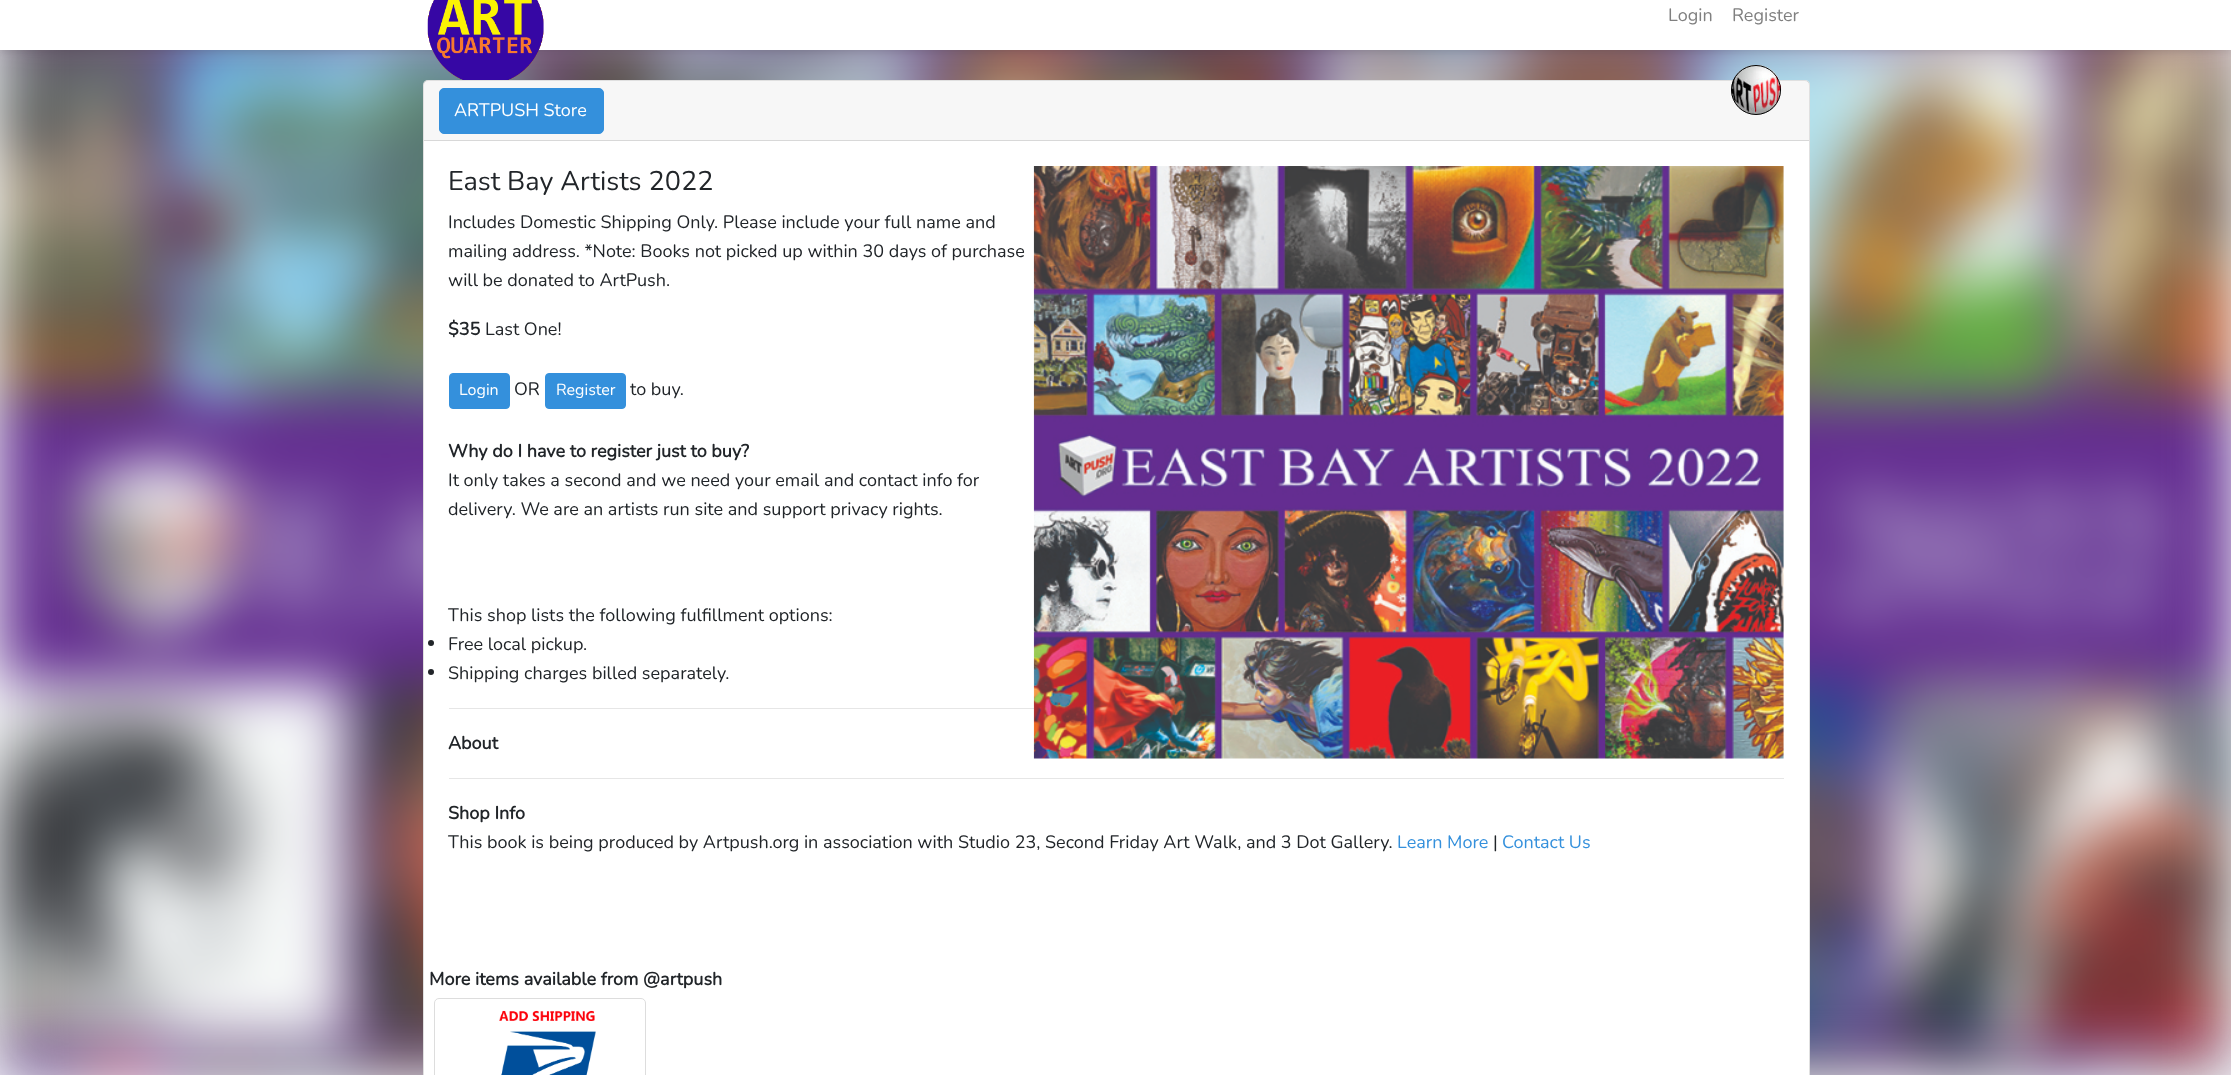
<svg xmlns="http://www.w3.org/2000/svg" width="2231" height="1075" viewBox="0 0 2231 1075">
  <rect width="100%" height="100%" fill="#f8fafc"/>
  <image x="0" y="50" width="2231" height="1025" href="img/5.png"/>
  <path d="M0 -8h2231v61H0z" fill="#00000012" filter="blur(2.5px)"/>
  <path d="M0 0h2231v50H0z" fill="#fff"/>
  <image x="427" y="0" width="117" height="80" href="img/1.png"/>
  <rect x="423" y="80" width="1387" height="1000" rx="5" fill="#fff"/>
  <rect x="423.5" y="80.5" width="1386" height="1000" rx="4.5" fill="none" stroke="#0000001f"/>
  <path d="M424 81h1385v59H424z" fill="#00000008"/>
  <path d="M424 140h1385v1H424z" fill="#d8d8d8"/>
  <rect x="439.5" y="88.5" width="164" height="45" rx="4.5" fill="#3490dc" stroke="#3490dc"/>
  <image x="1731" y="65" width="51" height="50" href="img/2.png"/>
  <circle cx="1756" cy="90" r="24.5" fill="none" stroke="#000"/>
  <path d="M449 708h1335v1H449z" fill="#e6e6e6"/>
  <image x="1033" y="166" width="751" height="593" href="img/3.png"/>
  <rect x="449.5" y="373.5" width="60" height="35" rx="3.5" fill="#3490dc" stroke="#3490dc"/>
  <rect x="545.5" y="373.5" width="80" height="35" rx="3.5" fill="#3490dc" stroke="#3490dc"/>
  <circle cx="431" cy="643" r="3" fill="#212529"/>
  <circle cx="431" cy="672" r="3" fill="#212529"/>
  <path d="M449 778h1335v1H449z" fill="#e6e6e6"/>
  <rect x="434.5" y="998.5" width="211" height="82" rx="4.5" fill="none" stroke="#ddd"/>
  <image x="499" y="1010" width="97" height="65" href="img/4.png"/>
  <g font-family="Nunito" font-size="18" font-weight="200" fill="#808080">
    <text x="1668" y="21">Login</text>
    <text x="1732" y="21">Register</text>
  </g>
  <text x="454" y="116" font-family="Nunito" font-size="18" font-weight="200" fill="#fff">ARTPUSH Store</text>
  <text x="448" y="190" font-family="Nunito" font-size="27" font-weight="200" fill="#212529">East Bay Artists 2022</text>
  <g font-family="Nunito" font-size="18" font-weight="200" fill="#212529">
    <text x="448" y="228">Includes Domestic Shipping Only. Please include your full name and</text>
    <text x="448" y="257">mailing address. *Note: Books not picked up within 30 days of purchase</text>
    <text x="448" y="286">will be donated to ArtPush.</text>
  </g>
  <text x="448" y="335" font-family="Nunito" font-size="18" font-weight="bold" fill="#212529">$35</text>
  <text x="485" y="335" font-family="Nunito" font-size="18" font-weight="200" fill="#212529">Last One!</text>
  <text x="459" y="395" font-family="Nunito" font-size="16" font-weight="200" fill="#fff">Login</text>
  <text x="514" y="395" font-family="Nunito" font-size="18" font-weight="200" fill="#212529">OR</text>
  <text x="556" y="395" font-family="Nunito" font-size="16" font-weight="200" fill="#fff">Register</text>
  <text x="630" y="395" font-family="Nunito" font-size="18" font-weight="200" fill="#212529">to buy.</text>
  <text x="448" y="457" font-family="Nunito" font-size="18" font-weight="bold" fill="#212529">Why do I have to register just to buy?</text>
  <g font-family="Nunito" font-size="18" font-weight="200" fill="#212529">
    <text x="448" y="486">It only takes a second and we need your email and contact info for</text>
    <text x="448" y="515">delivery. We are an artists run site and support privacy rights.</text>
    <text x="448" y="621">This shop lists the following fulfillment options:</text>
    <text x="448" y="650">Free local pickup.</text>
    <text x="448" y="679">Shipping charges billed separately.</text>
  </g>
  <g font-family="Nunito" font-size="18" font-weight="bold" fill="#212529">
    <text x="448" y="749">About</text>
    <text x="448" y="819">Shop Info</text>
  </g>
  <text x="448" y="848" font-family="Nunito" font-size="18" font-weight="200" fill="#212529">This book is being produced by Artpush.org in association with Studio 23, Second Friday Art Walk, and 3 Dot Gallery.</text>
  <text x="1397" y="848" font-family="Nunito" font-size="18" font-weight="200" fill="#3490dc">Learn More</text>
  <text x="1493" y="848" font-family="Nunito" font-size="18" font-weight="200" fill="#212529">|</text>
  <text x="1502" y="848" font-family="Nunito" font-size="18" font-weight="200" fill="#3490dc">Contact Us</text>
  <text x="429" y="985" font-family="Nunito" font-size="18" font-weight="bold" fill="#212529">More items available from @artpush</text>
</svg>
